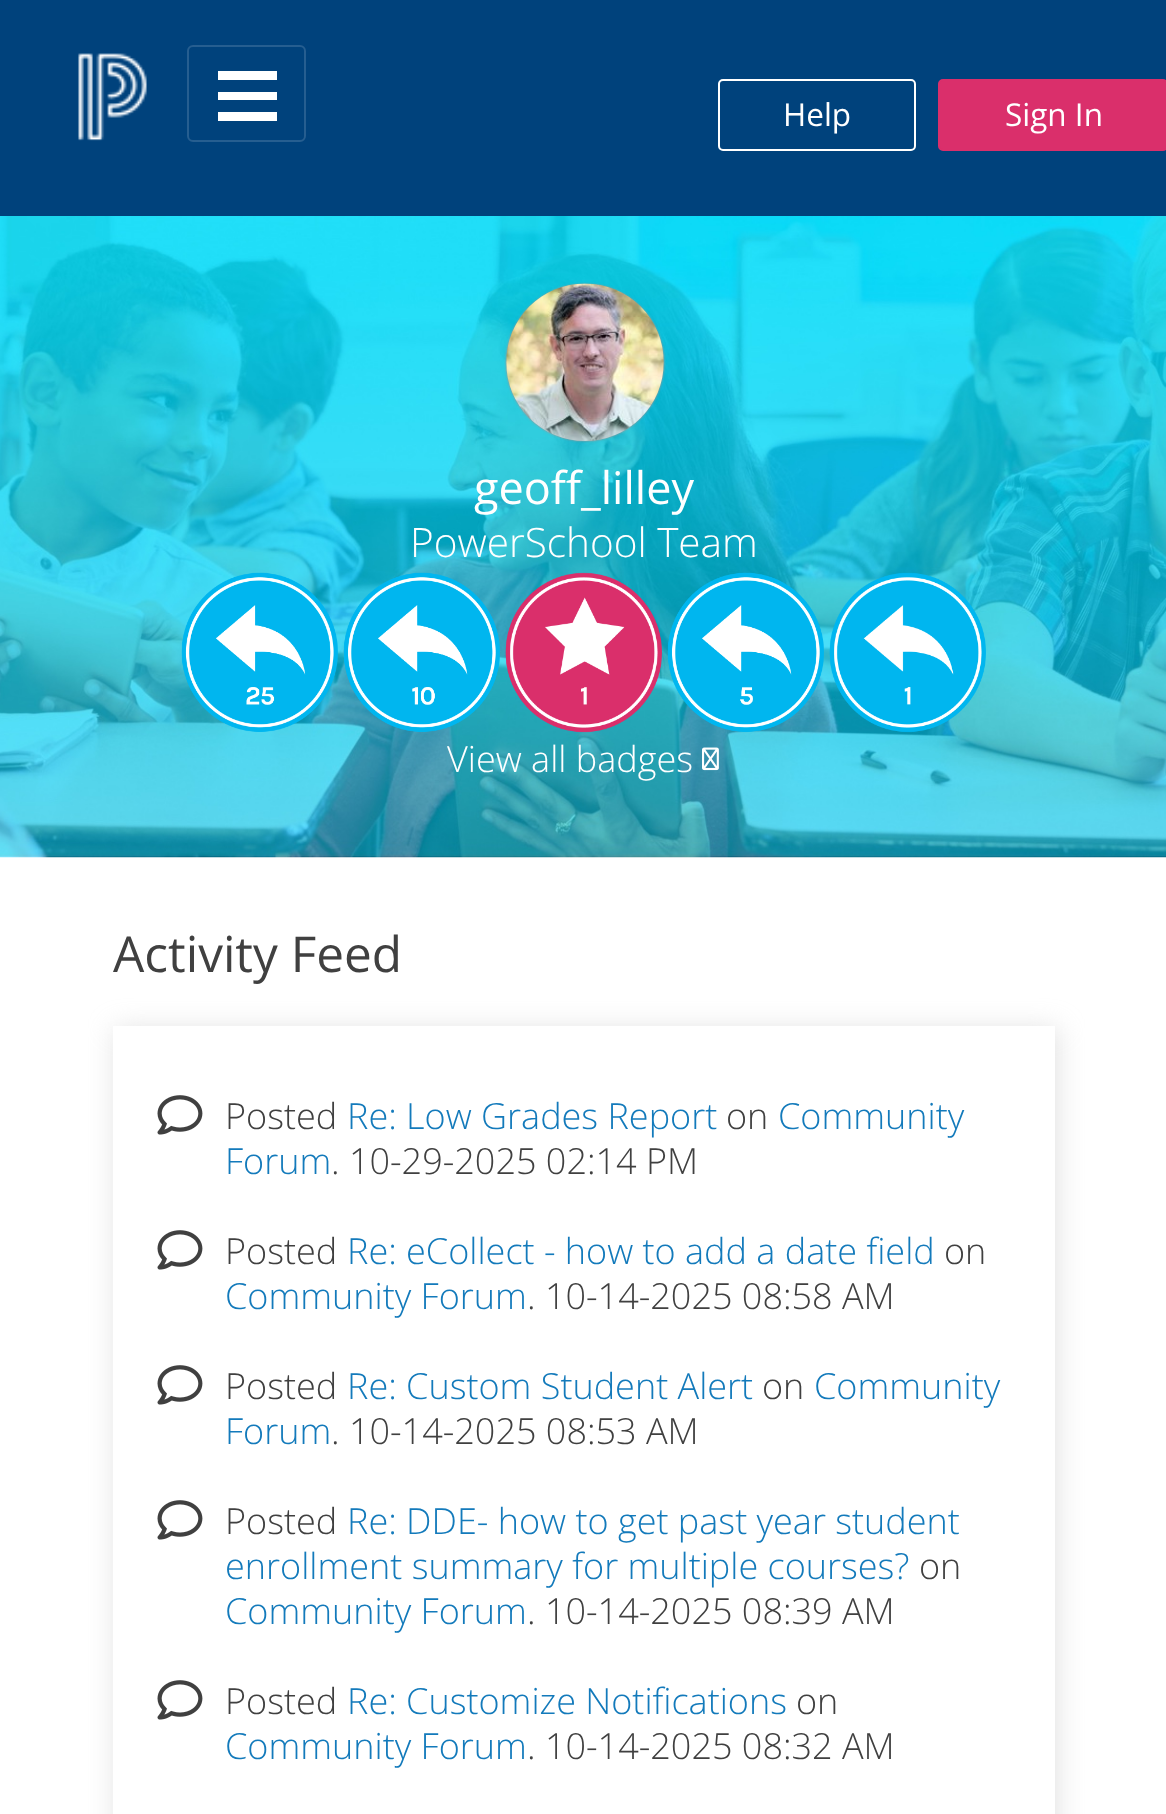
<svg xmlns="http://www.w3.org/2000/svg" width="1166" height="1814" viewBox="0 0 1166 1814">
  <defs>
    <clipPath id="clip1"><path d="M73 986H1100V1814H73ZM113 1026H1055V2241H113Z" clip-rule="evenodd"/></clipPath>
  </defs>
  <rect width="100%" height="100%" fill="#fff"/>
  <path d="M0 0h1166v216H0z" fill="#00427c"/>
  <image x="78" y="53" width="69" height="88" href="img/1.png"/>
  <rect x="188" y="46" width="117" height="95" rx="5" fill="none" stroke="#265e90" stroke-width="2"/>
  <path d="M218 71H277V80H218ZM218 92H277V100H218ZM218 112H277V121H218Z" fill="#fff" fill-rule="evenodd"/>
  <rect x="719" y="80" width="196" height="70" rx="4" fill="none" stroke="#fff" stroke-width="2"/>
  <rect x="939" y="80" width="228" height="70" rx="4" fill="#da2f6b" stroke="#da2f6b" stroke-width="2"/>
  <image x="0" y="216" width="1166" height="642" href="img/2.png"/>
  <rect x="506" y="284" width="158" height="157" rx="78.5" fill="#999" filter="blur(1px)"/>
  <image x="506" y="283" width="158" height="158" href="img/3.png"/>
  <image x="181" y="572" width="157" height="160" href="img/4.png"/>
  <image x="343" y="572" width="157" height="160" href="img/5.png"/>
  <image x="505" y="572" width="157" height="161" href="img/6.png"/>
  <image x="667" y="572" width="157" height="160" href="img/7.png"/>
  <image x="829" y="572" width="157" height="161" href="img/8.png"/>
  <image x="702" y="747" width="17" height="24" href="img/9.png"/>
  <g clip-path="url(#clip1)">
    <path d="M115 1028h943v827H115z" fill="#c6c6c680" filter="blur(13.5px)"/>
  </g>
  <image x="157" y="1095" width="46" height="40" href="img/10.png"/>
  <image x="157" y="1230" width="46" height="40" href="img/10.png"/>
  <image x="157" y="1365" width="46" height="40" href="img/10.png"/>
  <image x="157" y="1500" width="46" height="40" href="img/10.png"/>
  <image x="157" y="1680" width="46" height="40" href="img/10.png"/>
  <g font-family="Open Sans" font-size="31.5" fill="#fff">
    <text x="783" y="126">Help</text>
    <text x="1005" y="126">Sign In</text>
  </g>
  <text x="474" y="504" font-family="Open Sans" font-size="45" fill="#fff">geoff_lilley</text>
  <text x="410" y="557" font-family="Open Sans" font-size="40.5" font-weight="300" fill="#fff">PowerSchool Team</text>
  <text x="447" y="772" font-family="Open Sans" font-size="36" font-weight="300" fill="#fff">View all badges</text>
  <text x="113" y="972" font-family="Open Sans" font-size="49.5" fill="#404040">Activity Feed</text>
  <text x="225" y="1129" font-family="Open Sans" font-size="36" font-weight="300" fill="#404040">Posted</text>
  <text x="347" y="1129" font-family="Open Sans" font-size="36" font-weight="300" fill="#137abb">Re: Low Grades Report</text>
  <text x="726" y="1129" font-family="Open Sans" font-size="36" font-weight="300" fill="#404040">on</text>
  <g font-family="Open Sans" font-size="36" font-weight="300" fill="#137abb">
    <text x="778" y="1129">Community</text>
    <text x="225" y="1174">Forum</text>
  </g>
  <g font-family="Open Sans" font-size="36" font-weight="300" fill="#404040">
    <text x="331" y="1174">. 10-29-2025 02:14 PM</text>
    <text x="225" y="1264">Posted</text>
  </g>
  <text x="347" y="1264" font-family="Open Sans" font-size="36" font-weight="300" fill="#137abb">Re: eCollect - how to add a date field</text>
  <text x="944" y="1264" font-family="Open Sans" font-size="36" font-weight="300" fill="#404040">on</text>
  <text x="225" y="1309" font-family="Open Sans" font-size="36" font-weight="300" fill="#137abb">Community Forum</text>
  <g font-family="Open Sans" font-size="36" font-weight="300" fill="#404040">
    <text x="527" y="1309">. 10-14-2025 08:58 AM</text>
    <text x="225" y="1399">Posted</text>
  </g>
  <text x="347" y="1399" font-family="Open Sans" font-size="36" font-weight="300" fill="#137abb">Re: Custom Student Alert</text>
  <text x="762" y="1399" font-family="Open Sans" font-size="36" font-weight="300" fill="#404040">on</text>
  <g font-family="Open Sans" font-size="36" font-weight="300" fill="#137abb">
    <text x="814" y="1399">Community</text>
    <text x="225" y="1444">Forum</text>
  </g>
  <g font-family="Open Sans" font-size="36" font-weight="300" fill="#404040">
    <text x="331" y="1444">. 10-14-2025 08:53 AM</text>
    <text x="225" y="1534">Posted</text>
  </g>
  <g font-family="Open Sans" font-size="36" font-weight="300" fill="#137abb">
    <text x="347" y="1534">Re: DDE- how to get past year student</text>
    <text x="225" y="1579">enrollment summary for multiple courses?</text>
  </g>
  <text x="919" y="1579" font-family="Open Sans" font-size="36" font-weight="300" fill="#404040">on</text>
  <text x="225" y="1624" font-family="Open Sans" font-size="36" font-weight="300" fill="#137abb">Community Forum</text>
  <g font-family="Open Sans" font-size="36" font-weight="300" fill="#404040">
    <text x="527" y="1624">. 10-14-2025 08:39 AM</text>
    <text x="225" y="1714">Posted</text>
  </g>
  <text x="347" y="1714" font-family="Open Sans" font-size="36" font-weight="300" fill="#137abb">Re: Customize Notifications</text>
  <text x="796" y="1714" font-family="Open Sans" font-size="36" font-weight="300" fill="#404040">on</text>
  <text x="225" y="1759" font-family="Open Sans" font-size="36" font-weight="300" fill="#137abb">Community Forum</text>
  <text x="527" y="1759" font-family="Open Sans" font-size="36" font-weight="300" fill="#404040">. 10-14-2025 08:32 AM</text>
</svg>
